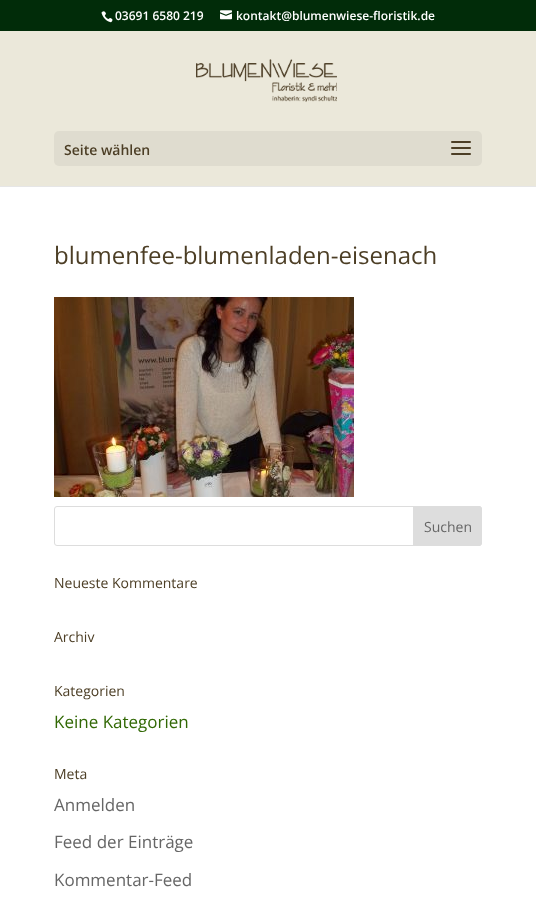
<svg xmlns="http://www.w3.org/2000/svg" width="536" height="919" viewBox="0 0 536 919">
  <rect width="100%" height="100%" fill="#fff"/>
  <path d="M0 0h536v31H0z" fill="#012c09"/>
  <image x="101" y="11" width="12" height="12" href="img/1.png"/>
  <image x="220" y="10" width="12" height="10" href="img/2.png"/>
  <path d="M0 186h536v1H0z" fill="#e6e6e6"/>
  <path d="M0 31h536v155H0z" fill="#ebe8da"/>
  <image x="196" y="59" width="141" height="43" href="img/3.png"/>
  <rect x="54" y="131" width="428" height="35" rx="5" fill="#dfdccf"/>
  <image x="451" y="141" width="20" height="14" href="img/4.png"/>
  <image x="54" y="297" width="300" height="200" href="img/5.png"/>
  <rect x="54.5" y="506.5" width="427" height="39" rx="2.5" fill="none" stroke="#ddd"/>
  <path d="M413.5 506.5H479C480.5 506.5 481.5 507.5 481.5 509V543C481.5 544.5 480.5 545.5 479 545.5H413.5Z" fill="#ddd" stroke="#ddd"/>
  <g font-family="Open Sans" font-size="12" font-weight="600" fill="#fff">
    <text x="115" y="20">03691 6580 219</text>
    <text x="236" y="20">kontakt@blumenwiese-floristik.de</text>
  </g>
  <text x="64" y="155" font-family="Open Sans" font-size="14" font-weight="600" fill="#4c3e25">Seite wählen</text>
  <text x="54" y="264" font-family="Open Sans" font-size="24" fill="#4c3e25">blumenfee-blumenladen-eisenach</text>
  <text x="424" y="532" font-family="Open Sans" font-size="14" fill="#666">Suchen</text>
  <g font-family="Open Sans" font-size="14" fill="#4c3e25">
    <text x="54" y="588">Neueste Kommentare</text>
    <text x="54" y="642">Archiv</text>
    <text x="54" y="696">Kategorien</text>
  </g>
  <text x="54" y="728" font-family="Open Sans" font-size="17" fill="#316804">Keine Kategorien</text>
  <text x="54" y="779" font-family="Open Sans" font-size="14" fill="#4c3e25">Meta</text>
  <g font-family="Open Sans" font-size="17" fill="#666">
    <text x="54" y="811">Anmelden</text>
    <text x="54" y="848">Feed der Einträge</text>
    <text x="54" y="886">Kommentar-Feed</text>
  </g>
</svg>
